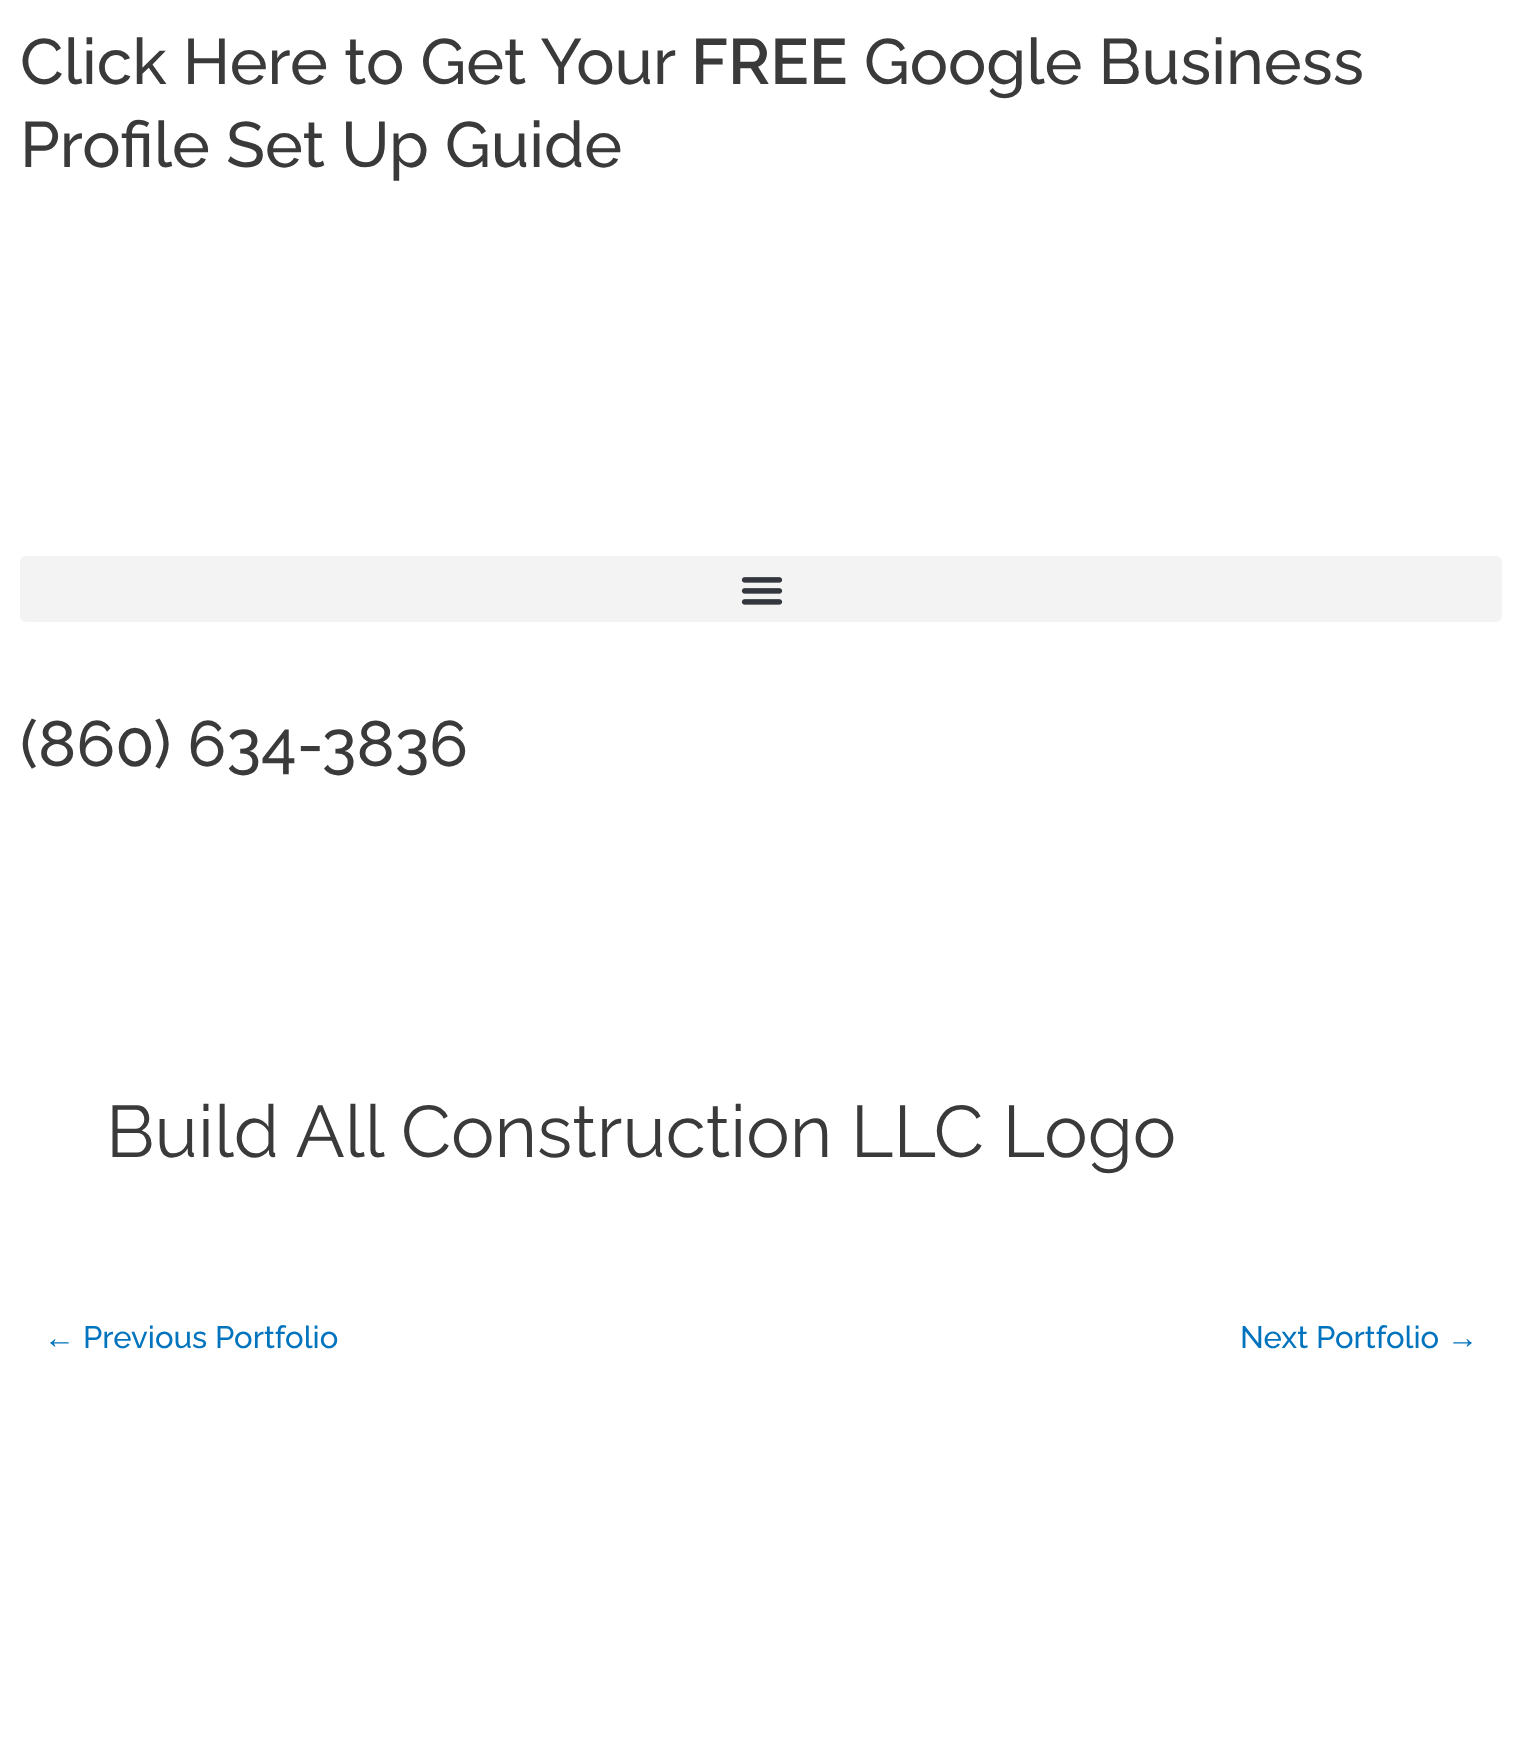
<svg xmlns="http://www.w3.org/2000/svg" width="1521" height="1751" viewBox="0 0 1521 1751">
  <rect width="100%" height="100%" fill="#fff"/>
  <rect x="20" y="556" width="1482" height="66" rx="6" fill="#f3f3f3"/>
  <image x="741" y="577" width="42" height="28" href="img/1.png"/>
  <text x="20" y="84" font-family="Raleway" font-size="64" font-weight="500" fill="#3a3a3a">Click Here to Get Your</text>
  <text x="691" y="84" font-family="Raleway" font-size="64" font-weight="600" fill="#3a3a3a">FREE</text>
  <g font-family="Raleway" font-size="64" font-weight="500" fill="#3a3a3a">
    <text x="864" y="84">Google Business</text>
    <text x="20" y="167">Profile Set Up Guide</text>
    <text x="20" y="766">(860) 634-3836</text>
  </g>
  <text x="106" y="1157" font-family="Raleway" font-size="73" fill="#3a3a3a">Build All Construction LLC Logo</text>
  <text x="44" y="1348" font-family="Liberation Sans" font-size="31" fill="#0274be">←</text>
  <g font-family="Raleway" font-size="31" font-weight="500" fill="#0274be">
    <text x="83" y="1348">Previous Portfolio</text>
    <text x="1240" y="1348">Next Portfolio</text>
  </g>
  <text x="1447" y="1348" font-family="Liberation Sans" font-size="31" fill="#0274be">→</text>
</svg>
